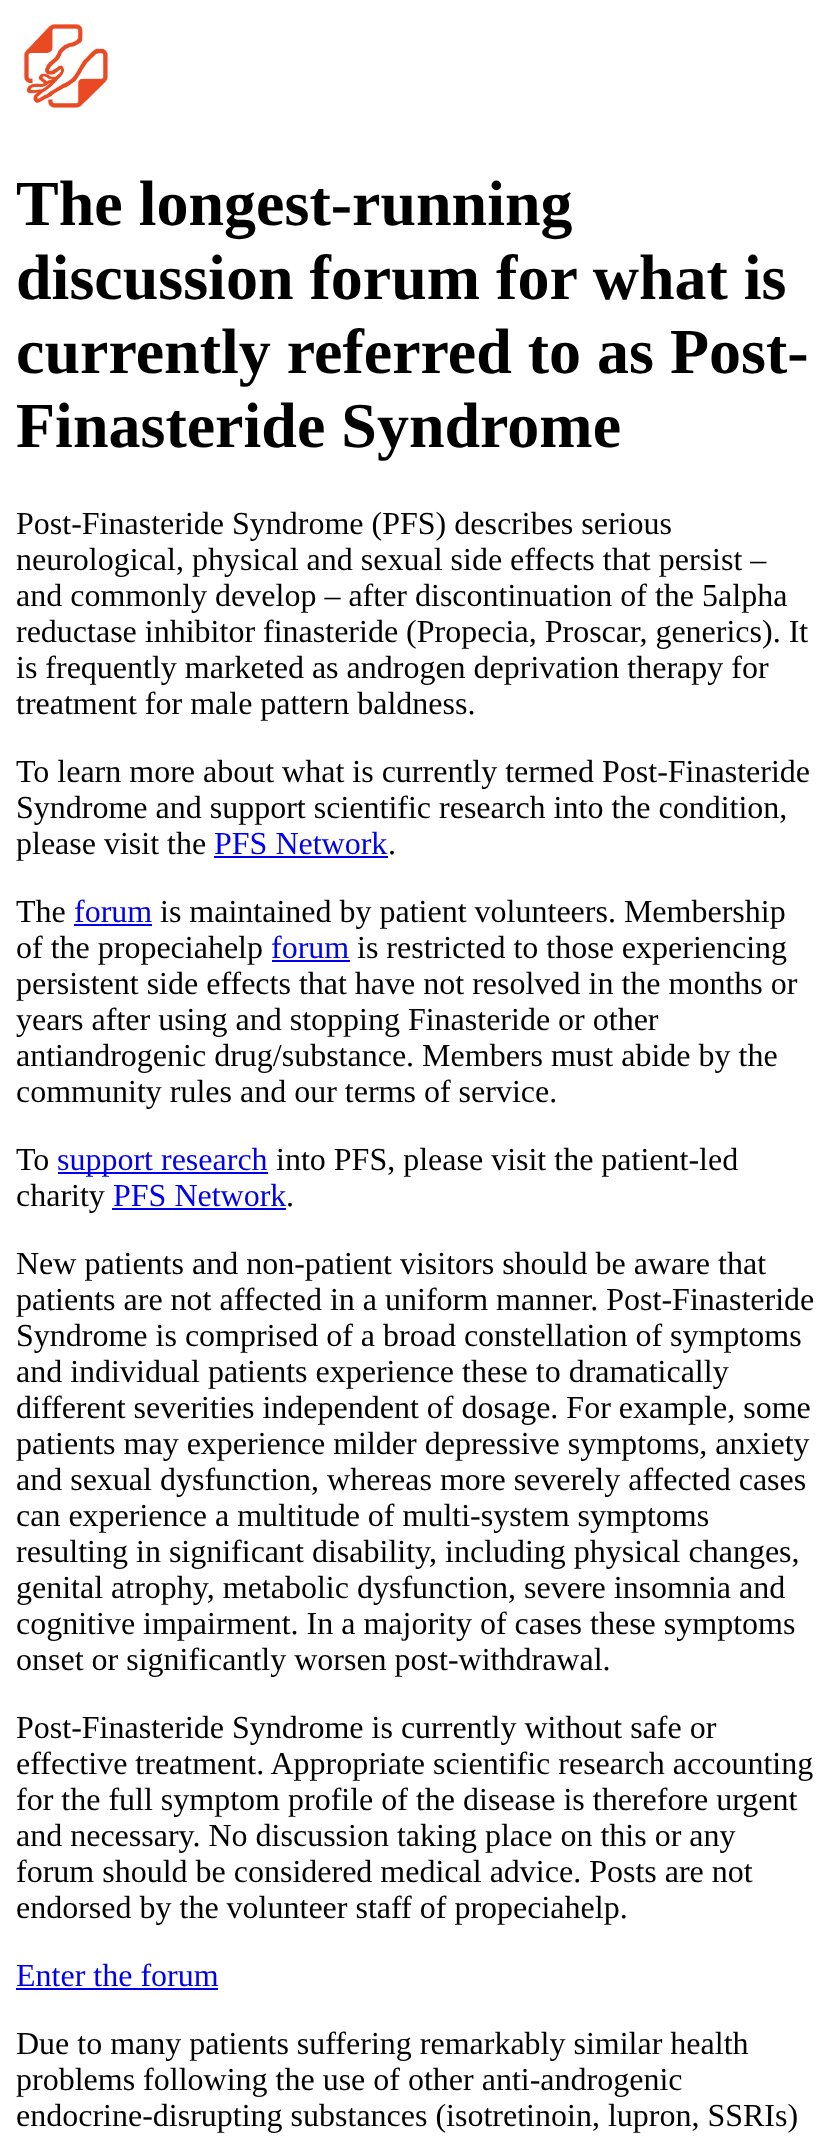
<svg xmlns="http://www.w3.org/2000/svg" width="831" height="2155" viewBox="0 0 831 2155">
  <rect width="100%" height="100%" fill="#fff"/>
  <image x="24" y="24" width="84" height="84" href="img/1.png"/>
  <path d="M214 856h174v2H214z" fill="#00e"/>
  <path d="M74 924h78v2H74z" fill="#00e"/>
  <path d="M272 960h78v2H272z" fill="#00e"/>
  <path d="M58 1172h210v2H58z" fill="#00e"/>
  <path d="M112 1208h174v2H112z" fill="#00e"/>
  <path d="M16 1988h202v2H16z" fill="#00e"/>
  <g font-family="Liberation Serif" font-size="64" font-weight="bold" fill="#000">
    <text x="16" y="225">The longest-running</text>
    <text x="16" y="299">discussion forum for what is</text>
    <text x="16" y="373">currently referred to as Post-</text>
    <text x="16" y="447">Finasteride Syndrome</text>
  </g>
  <g font-family="Liberation Serif" font-size="32" fill="#000">
    <text x="16" y="534">Post-Finasteride Syndrome (PFS) describes serious</text>
    <text x="16" y="570">neurological, physical and sexual side effects that persist –</text>
    <text x="16" y="606">and commonly develop – after discontinuation of the 5alpha</text>
    <text x="16" y="642">reductase inhibitor finasteride (Propecia, Proscar, generics). It</text>
    <text x="16" y="678">is frequently marketed as androgen deprivation therapy for</text>
    <text x="16" y="714">treatment for male pattern baldness.</text>
    <text x="16" y="782">To learn more about what is currently termed Post-Finasteride</text>
    <text x="16" y="818">Syndrome and support scientific research into the condition,</text>
    <text x="16" y="854">please visit the</text>
  </g>
  <text x="214" y="854" font-family="Liberation Serif" font-size="32" fill="#00e">PFS Network</text>
  <g font-family="Liberation Serif" font-size="32" fill="#000">
    <text x="388" y="854">.</text>
    <text x="16" y="922">The</text>
  </g>
  <text x="74" y="922" font-family="Liberation Serif" font-size="32" fill="#00e">forum</text>
  <g font-family="Liberation Serif" font-size="32" fill="#000">
    <text x="160" y="922">is maintained by patient volunteers. Membership</text>
    <text x="16" y="958">of the propeciahelp</text>
  </g>
  <text x="271" y="958" font-family="Liberation Serif" font-size="32" fill="#00e">forum</text>
  <g font-family="Liberation Serif" font-size="32" fill="#000">
    <text x="357" y="958">is restricted to those experiencing</text>
    <text x="16" y="994">persistent side effects that have not resolved in the months or</text>
    <text x="16" y="1030">years after using and stopping Finasteride or other</text>
    <text x="16" y="1066">antiandrogenic drug/substance. Members must abide by the</text>
    <text x="16" y="1102">community rules and our terms of service.</text>
    <text x="16" y="1170">To</text>
  </g>
  <text x="57" y="1170" font-family="Liberation Serif" font-size="32" fill="#00e">support research</text>
  <g font-family="Liberation Serif" font-size="32" fill="#000">
    <text x="276" y="1170">into PFS, please visit the patient-led</text>
    <text x="16" y="1206">charity</text>
  </g>
  <text x="113" y="1206" font-family="Liberation Serif" font-size="32" fill="#00e">PFS Network</text>
  <g font-family="Liberation Serif" font-size="32" fill="#000">
    <text x="286" y="1206">.</text>
    <text x="16" y="1274">New patients and non-patient visitors should be aware that</text>
    <text x="16" y="1310">patients are not affected in a uniform manner. Post-Finasteride</text>
    <text x="16" y="1346">Syndrome is comprised of a broad constellation of symptoms</text>
    <text x="16" y="1382">and individual patients experience these to dramatically</text>
    <text x="16" y="1418">different severities independent of dosage. For example, some</text>
    <text x="16" y="1454">patients may experience milder depressive symptoms, anxiety</text>
    <text x="16" y="1490">and sexual dysfunction, whereas more severely affected cases</text>
    <text x="16" y="1526">can experience a multitude of multi-system symptoms</text>
    <text x="16" y="1562">resulting in significant disability, including physical changes,</text>
    <text x="16" y="1598">genital atrophy, metabolic dysfunction, severe insomnia and</text>
    <text x="16" y="1634">cognitive impairment. In a majority of cases these symptoms</text>
    <text x="16" y="1670">onset or significantly worsen post-withdrawal.</text>
    <text x="16" y="1738">Post-Finasteride Syndrome is currently without safe or</text>
    <text x="16" y="1774">effective treatment. Appropriate scientific research accounting</text>
    <text x="16" y="1810">for the full symptom profile of the disease is therefore urgent</text>
    <text x="16" y="1846">and necessary. No discussion taking place on this or any</text>
    <text x="16" y="1882">forum should be considered medical advice. Posts are not</text>
    <text x="16" y="1918">endorsed by the volunteer staff of propeciahelp.</text>
  </g>
  <text x="16" y="1986" font-family="Liberation Serif" font-size="32" fill="#00e">Enter the forum</text>
  <g font-family="Liberation Serif" font-size="32" fill="#000">
    <text x="16" y="2054">Due to many patients suffering remarkably similar health</text>
    <text x="16" y="2090">problems following the use of other anti-androgenic</text>
    <text x="16" y="2126">endocrine-disrupting substances (isotretinoin, lupron, SSRIs)</text>
  </g>
</svg>
